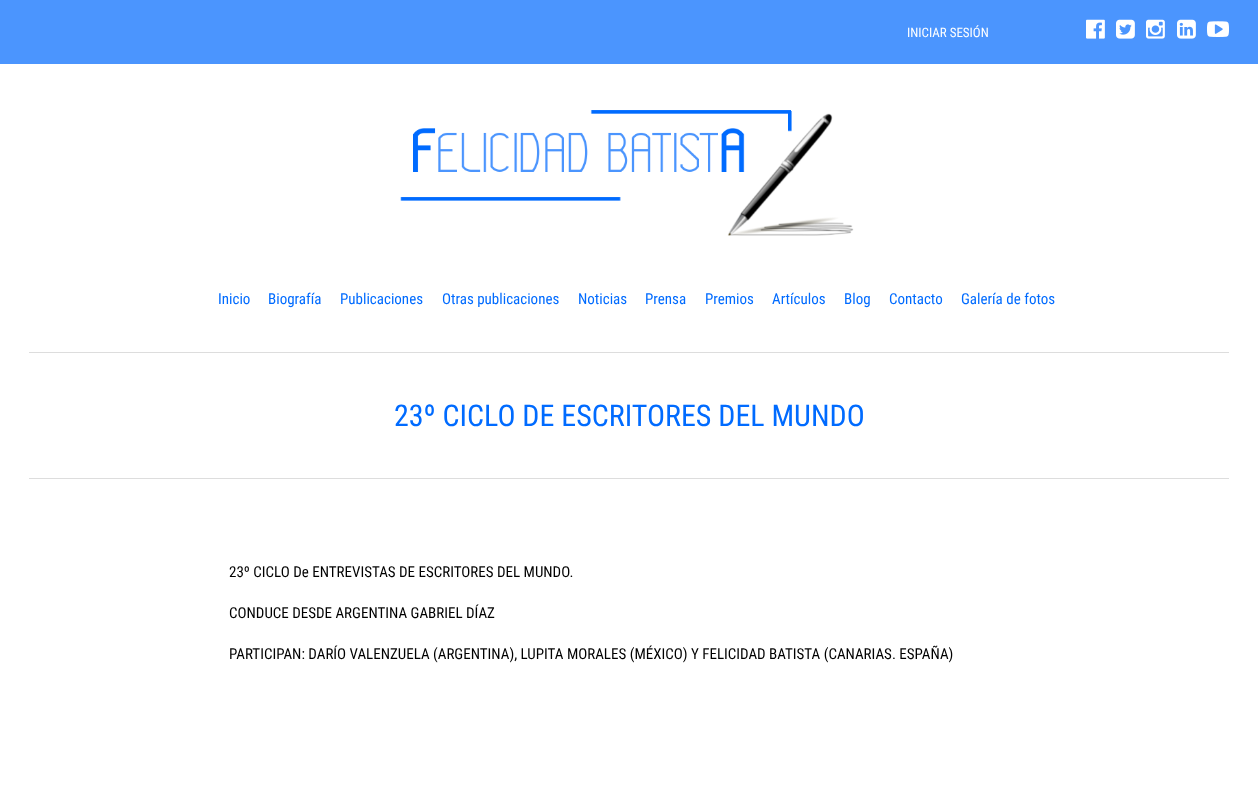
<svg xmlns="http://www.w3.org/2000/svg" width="1258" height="788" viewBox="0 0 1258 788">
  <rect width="100%" height="100%" fill="#fff"/>
  <path d="M0 0h1258v64H0z" fill="#4b95fe"/>
  <image x="1086" y="19" width="19" height="20" href="img/1.png"/>
  <image x="1116" y="19" width="19" height="20" href="img/2.png"/>
  <image x="1146" y="19" width="19" height="20" href="img/3.png"/>
  <image x="1177" y="19" width="19" height="20" href="img/4.png"/>
  <image x="1207" y="21" width="22" height="16" href="img/5.png"/>
  <image x="400" y="110" width="454" height="126" href="img/6.png"/>
  <path d="M29 352h1200v1H29z" fill="#ddd"/>
  <path d="M29 478h1200v1H29z" fill="#ddd"/>
  <text x="907" y="37" font-family="Roboto Condensed" font-size="13" fill="#fff">INICIAR SESIÓN</text>
  <g font-family="Roboto Condensed" font-size="15" fill="#006bff">
    <text x="218" y="304">Inicio</text>
    <text x="268" y="304">Biografía</text>
    <text x="340" y="304">Publicaciones</text>
    <text x="442" y="304">Otras publicaciones</text>
    <text x="578" y="304">Noticias</text>
    <text x="645" y="304">Prensa</text>
    <text x="705" y="304">Premios</text>
    <text x="772" y="304">Artículos</text>
    <text x="844" y="304">Blog</text>
    <text x="889" y="304">Contacto</text>
    <text x="961" y="304">Galería de fotos</text>
  </g>
  <text x="394" y="426" font-family="Roboto Condensed" font-size="30" fill="#006bff">23º CICLO DE ESCRITORES DEL MUNDO</text>
  <g font-family="Roboto Condensed" font-size="15" fill="#000">
    <text x="229" y="577">23º CICLO De ENTREVISTAS DE ESCRITORES DEL MUNDO.</text>
    <text x="229" y="618">CONDUCE DESDE ARGENTINA GABRIEL DÍAZ</text>
    <text x="229" y="659">PARTICIPAN: DARÍO VALENZUELA (ARGENTINA), LUPITA MORALES (MÉXICO) Y FELICIDAD BATISTA (CANARIAS. ESPAÑA)</text>
  </g>
</svg>
